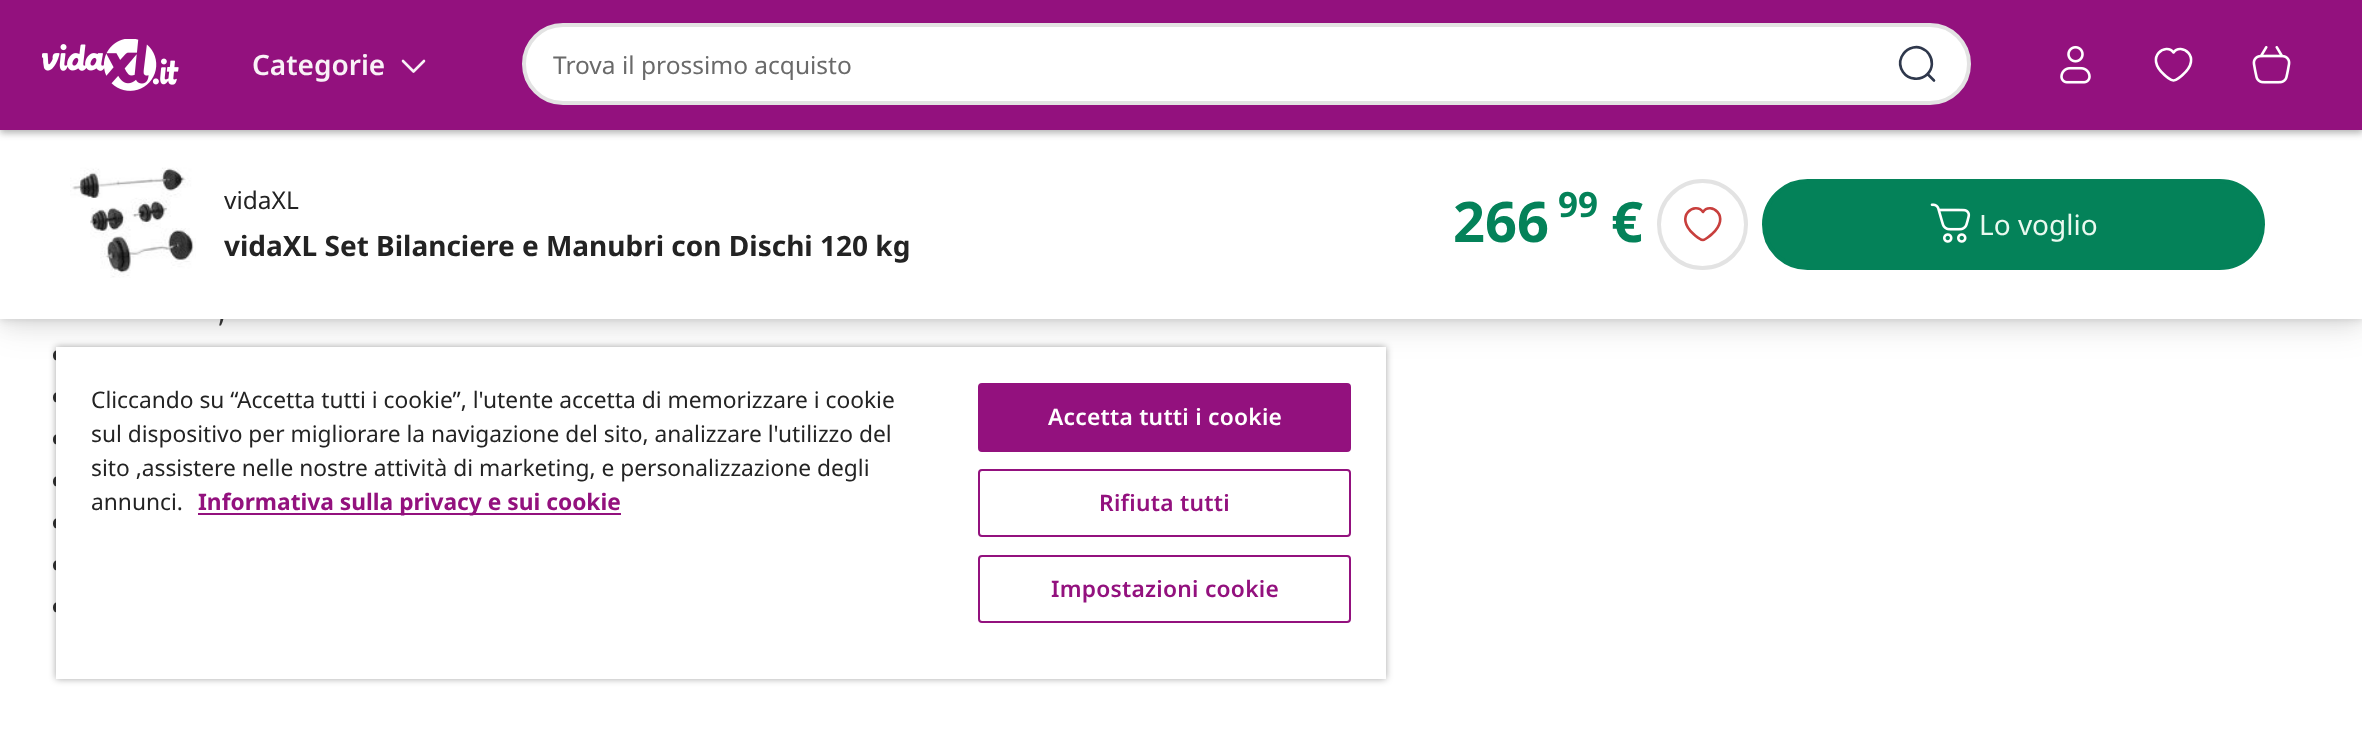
<svg xmlns="http://www.w3.org/2000/svg" width="2362" height="734" viewBox="0 0 2362 734">
  <rect width="100%" height="100%" fill="#fff"/>
  <rect x="53" y="350" width="10" height="11" rx="5" fill="#313131"/>
  <path d="M0 137h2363v189H0z" fill="#0000001a" filter="blur(17.5px)"/>
  <path d="M0 131h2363v189H0z" fill="#0000001a" filter="blur(3.5px)"/>
  <path d="M0 137h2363v189H0z" fill="#0000000d" filter="blur(9px)"/>
  <rect x="53" y="392" width="10" height="11" rx="5" fill="#313131"/>
  <rect x="53" y="434" width="10" height="11" rx="5" fill="#313131"/>
  <rect x="53" y="476" width="10" height="11" rx="5" fill="#313131"/>
  <rect x="53" y="518" width="10" height="11" rx="5" fill="#313131"/>
  <rect x="53" y="560" width="10" height="11" rx="5" fill="#313131"/>
  <rect x="53" y="602" width="10" height="11" rx="5" fill="#313131"/>
  <path d="M56 347h1330v332H56z" fill="#00000059" filter="blur(3.5px)"/>
  <path d="M56 347h1330v332H56z" fill="#fff"/>
  <path d="M198 513h423v2H198z" fill="#93117e"/>
  <rect x="979" y="384" width="371" height="67" rx="3" fill="#93117e" stroke="#93117e" stroke-width="2"/>
  <rect x="979" y="470" width="371" height="66" rx="3" fill="none" stroke="#93117e" stroke-width="2"/>
  <rect x="979" y="556" width="371" height="66" rx="3" fill="none" stroke="#93117e" stroke-width="2"/>
  <text x="218" y="322" font-family="Noto Sans" font-size="28" fill="#313131">,</text>
  <path d="M0 130h2362v189H0z" fill="#fff"/>
  <path d="M0 4h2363v129H0z" fill="#23232359" filter="blur(3.5px)"/>
  <path d="M0 0h2362v130H0z" fill="#93117e"/>
  <image x="2252" y="46" width="39" height="38" href="img/3.png"/>
  <path d="M2173.5 80.5C2176 80.5 2181.5 76 2183 74.5C2203 56.5 2180.5 42 2173.5 52.5C2166.5 42 2144 56.5 2164 74.5C2165.5 76 2171 80.5 2173.5 80.5Z" fill="none" stroke="#fff" stroke-width="2.6" stroke-linecap="round" stroke-linejoin="round"/>
  <image x="2060" y="45" width="31" height="39" href="img/2.png"/>
  <rect x="524" y="25" width="1445" height="78" rx="39" fill="#fff" stroke="#e3e3e3" stroke-width="4"/>
  <path d="M1934 80.5L1927.5 74M1927.5 74C1939 62.5 1926 41.5 1910 48.5C1906.5 50 1903.5 53 1901.5 57C1899.5 61.5 1900 67.5 1903 72C1908.5 80 1920.5 81 1927.5 74Z" fill="none" stroke="#2f384c" stroke-width="2.6" stroke-linecap="round"/>
  <text x="553" y="74" font-family="Noto Sans" font-size="24.5" fill="#6a6a6a">Trova il prossimo acquisto</text>
  <path d="M424 61L413.5 71.5L403 61" fill="none" stroke="#f9f1f7" stroke-width="2.6" stroke-linecap="round" stroke-linejoin="round"/>
  <image x="42" y="39" width="137" height="52" href="img/1.png"/>
  <text x="252" y="75" font-family="Noto Sans" font-size="28" font-weight="600" fill="#f9f1f7">Categorie</text>
  <text x="1558" y="217" font-family="Noto Sans" font-size="35" font-weight="bold" fill="#048259">99</text>
  <rect x="1764" y="181" width="499" height="87" rx="43.5" fill="#048259" stroke="#048259" stroke-width="4"/>
  <image x="1930" y="203" width="41" height="40" href="img/5.png"/>
  <circle cx="1702.5" cy="224.5" r="43.5" fill="none" stroke="#e3e3e3" stroke-width="4"/>
  <path d="M1703 240C1705 240 1710.5 235.5 1712 234C1732 216 1710 201 1703 212C1695.5 201 1673.5 216 1693.5 234C1695 235.5 1700.5 240 1703 240Z" fill="none" stroke="#c83f3d" stroke-width="2.6" stroke-linecap="round" stroke-linejoin="round"/>
  <text x="1979" y="235" font-family="Noto Sans" font-size="28" fill="#e9f9ef">Lo voglio</text>
  <g font-family="Noto Sans" font-size="56" font-weight="bold" fill="#048259">
    <text x="1611" y="242">€</text>
    <text x="1453" y="242">266</text>
  </g>
  <text x="224" y="256" font-family="Noto Sans" font-size="28" font-weight="bold" fill="#232323">vidaXL Set Bilanciere e Manubri con Dischi 120 kg</text>
  <text x="224" y="209" font-family="Noto Sans" font-size="24.5" fill="#232323">vidaXL</text>
  <image x="70" y="167" width="126" height="111" href="img/4.png"/>
  <g font-family="Noto Sans" font-size="22.75" fill="#232323">
    <text x="91" y="408">Cliccando su “Accetta tutti i cookie”, l'utente accetta di memorizzare i cookie</text>
    <text x="91" y="442">sul dispositivo per migliorare la navigazione del sito, analizzare l'utilizzo del</text>
    <text x="91" y="476">sito ,assistere nelle nostre attività di marketing, e personalizzazione degli</text>
    <text x="91" y="510">annunci.</text>
  </g>
  <text x="198" y="510" font-family="Noto Sans" font-size="22.75" font-weight="bold" fill="#93117e">Informativa sulla privacy e sui cookie</text>
  <text x="1048" y="425" font-family="Noto Sans" font-size="22.75" font-weight="600" letter-spacing="0.25" fill="#fff">Accetta tutti i cookie</text>
  <g font-family="Noto Sans" font-size="22.75" font-weight="600" letter-spacing="0.25" fill="#93117e">
    <text x="1099" y="511">Rifiuta tutti</text>
    <text x="1051" y="597">Impostazioni cookie</text>
  </g>
</svg>
